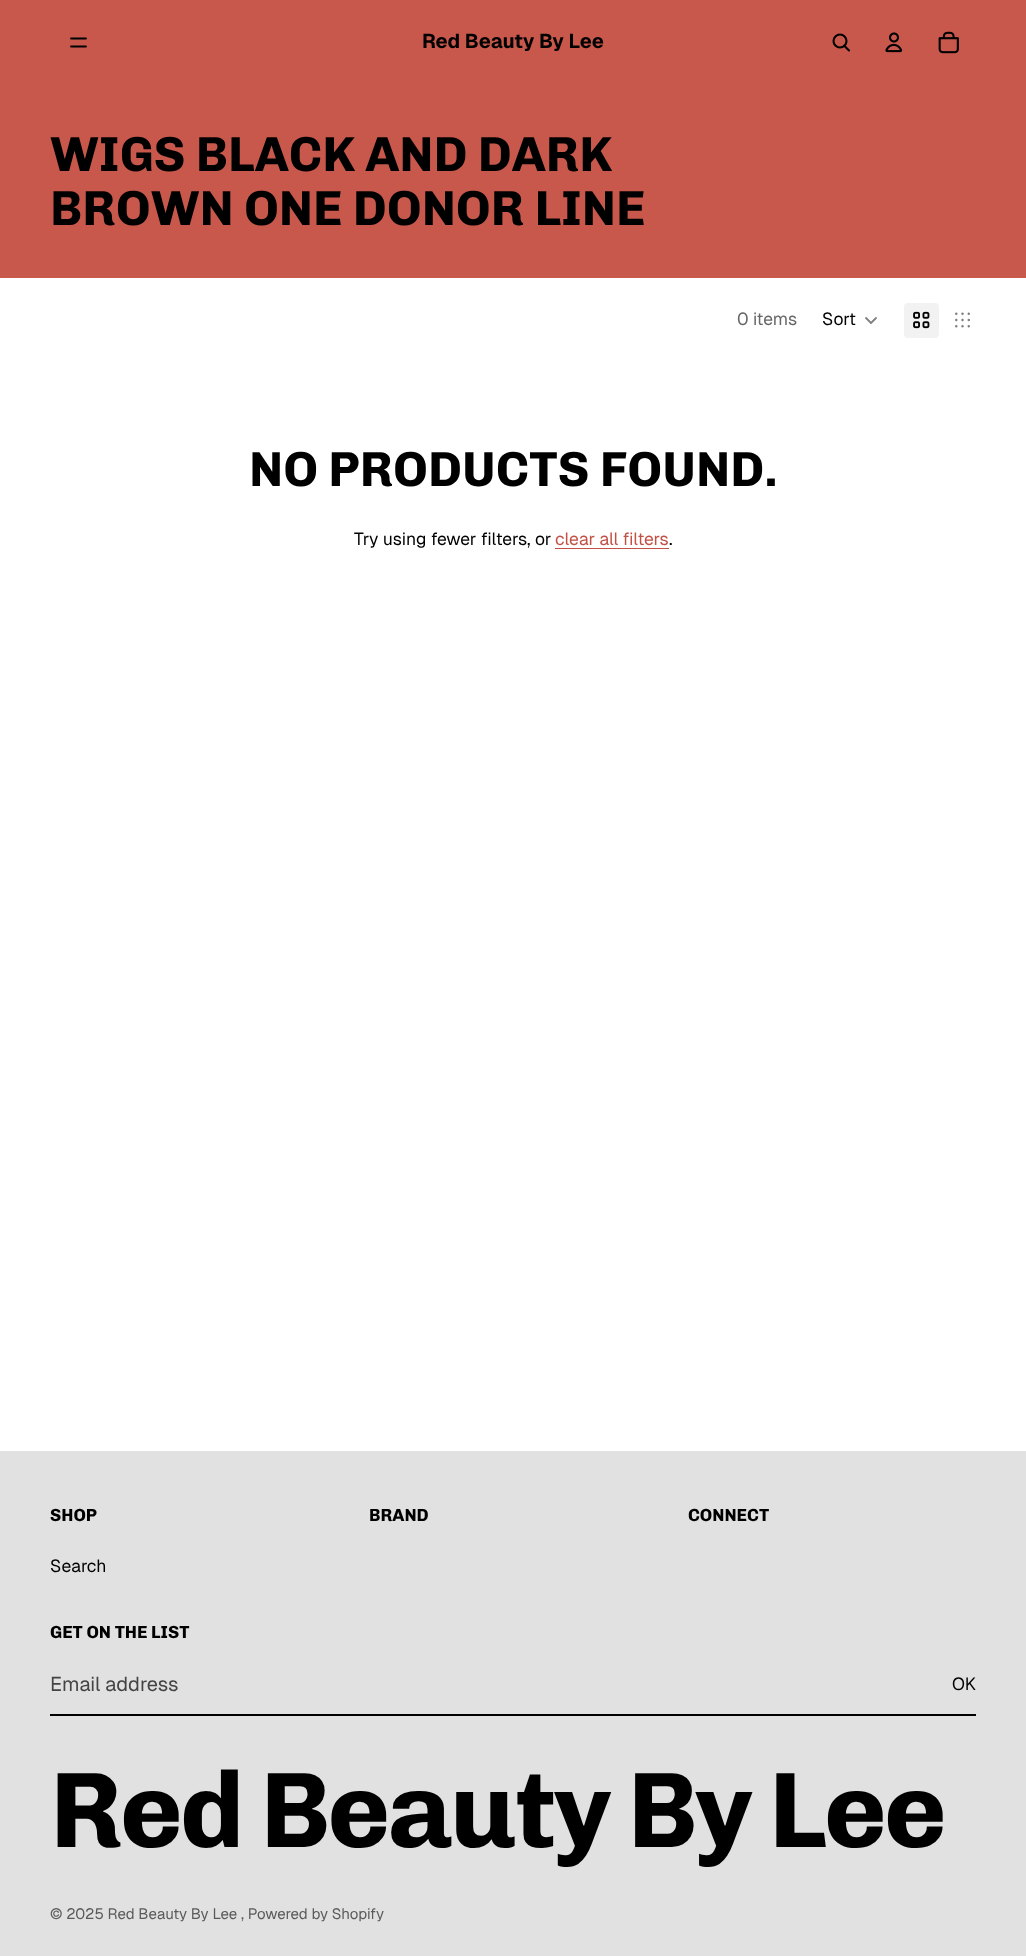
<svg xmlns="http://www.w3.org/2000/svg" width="1026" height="1956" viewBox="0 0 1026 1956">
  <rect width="100%" height="100%" fill="#fff"/>
  <path d="M0 0h1026v278H0z" fill="#c9584c"/>
  <path d="M71 38.5H86M71 46.5H86" fill="none" stroke="#000" stroke-width="1.8" stroke-linecap="round"/>
  <circle cx="840" cy="41" r="6.5" fill="none" stroke="#000" stroke-width="2.1"/>
  <path d="M844.5 46L849 50.5" fill="none" stroke="#000" stroke-width="2.1" stroke-linecap="round" stroke-linejoin="round"/>
  <image x="885" y="32" width="18" height="21" href="img/1.png"/>
  <image x="938" y="31" width="21" height="23" href="img/2.png"/>
  <path d="M876 318L871 323L866 318" fill="none" stroke="#808080" stroke-width="1.8" stroke-linecap="round" stroke-linejoin="round"/>
  <rect x="904" y="303" width="35" height="35" rx="4" fill="#f2f2f2"/>
  <image x="913" y="311" width="17" height="18" href="img/3.png"/>
  <image x="955" y="312" width="15" height="16" href="img/4.png"/>
  <path d="M555 548h114v1H555z" fill="#c15045"/>
  <path d="M0 1451h1026v505H0z" fill="#e1e1e1"/>
  <path d="M50 1714h926v2H50z" fill="#000"/>
  <text x="422" y="48" font-family="Geist" font-size="20" font-weight="bold" fill="#000">Red Beauty By Lee</text>
  <g font-family="Chivo" font-size="49.25" font-weight="bold" fill="#000">
    <text x="50" y="171">WIGS BLACK AND DARK</text>
    <text x="50" y="225">BROWN ONE DONOR LINE</text>
  </g>
  <text x="737" y="325" font-family="Geist" font-size="17.5" fill="#666">0 items</text>
  <text x="822" y="325" font-family="Geist" font-size="17.5" fill="#000">Sort</text>
  <text x="249" y="486" font-family="Chivo" font-size="49.25" font-weight="bold" fill="#000">NO PRODUCTS FOUND.</text>
  <text x="354" y="545" font-family="Geist" font-size="17.5" fill="#000">Try using fewer filters, or</text>
  <text x="555" y="545" font-family="Geist" font-size="17.5" fill="#c15045">clear all filters</text>
  <text x="669" y="545" font-family="Geist" font-size="17.5" fill="#000">.</text>
  <text x="50" y="1521" font-family="Chivo" font-size="17.5" font-weight="bold" fill="#000">SHOP</text>
  <text x="50" y="1572" font-family="Geist" font-size="17.5" fill="#000">Search</text>
  <g font-family="Chivo" font-size="17.5" font-weight="bold" fill="#000">
    <text x="369" y="1521">BRAND</text>
    <text x="688" y="1521">CONNECT</text>
    <text x="50" y="1638">GET ON THE LIST</text>
  </g>
  <text x="50" y="1691" font-family="Geist" font-size="20" fill="#444">Email address</text>
  <text x="952" y="1690" font-family="Geist" font-size="17.5" fill="#000">OK</text>
  <text x="50" y="1847" font-family="Chivo" font-size="107.5" font-weight="bold" letter-spacing="-3.25" fill="#000">Red Beauty By Lee</text>
  <text x="50" y="1919" font-family="Geist" font-size="15" fill="#5a5a5a">© 2025 Red Beauty By Lee , Powered by Shopify</text>
</svg>
